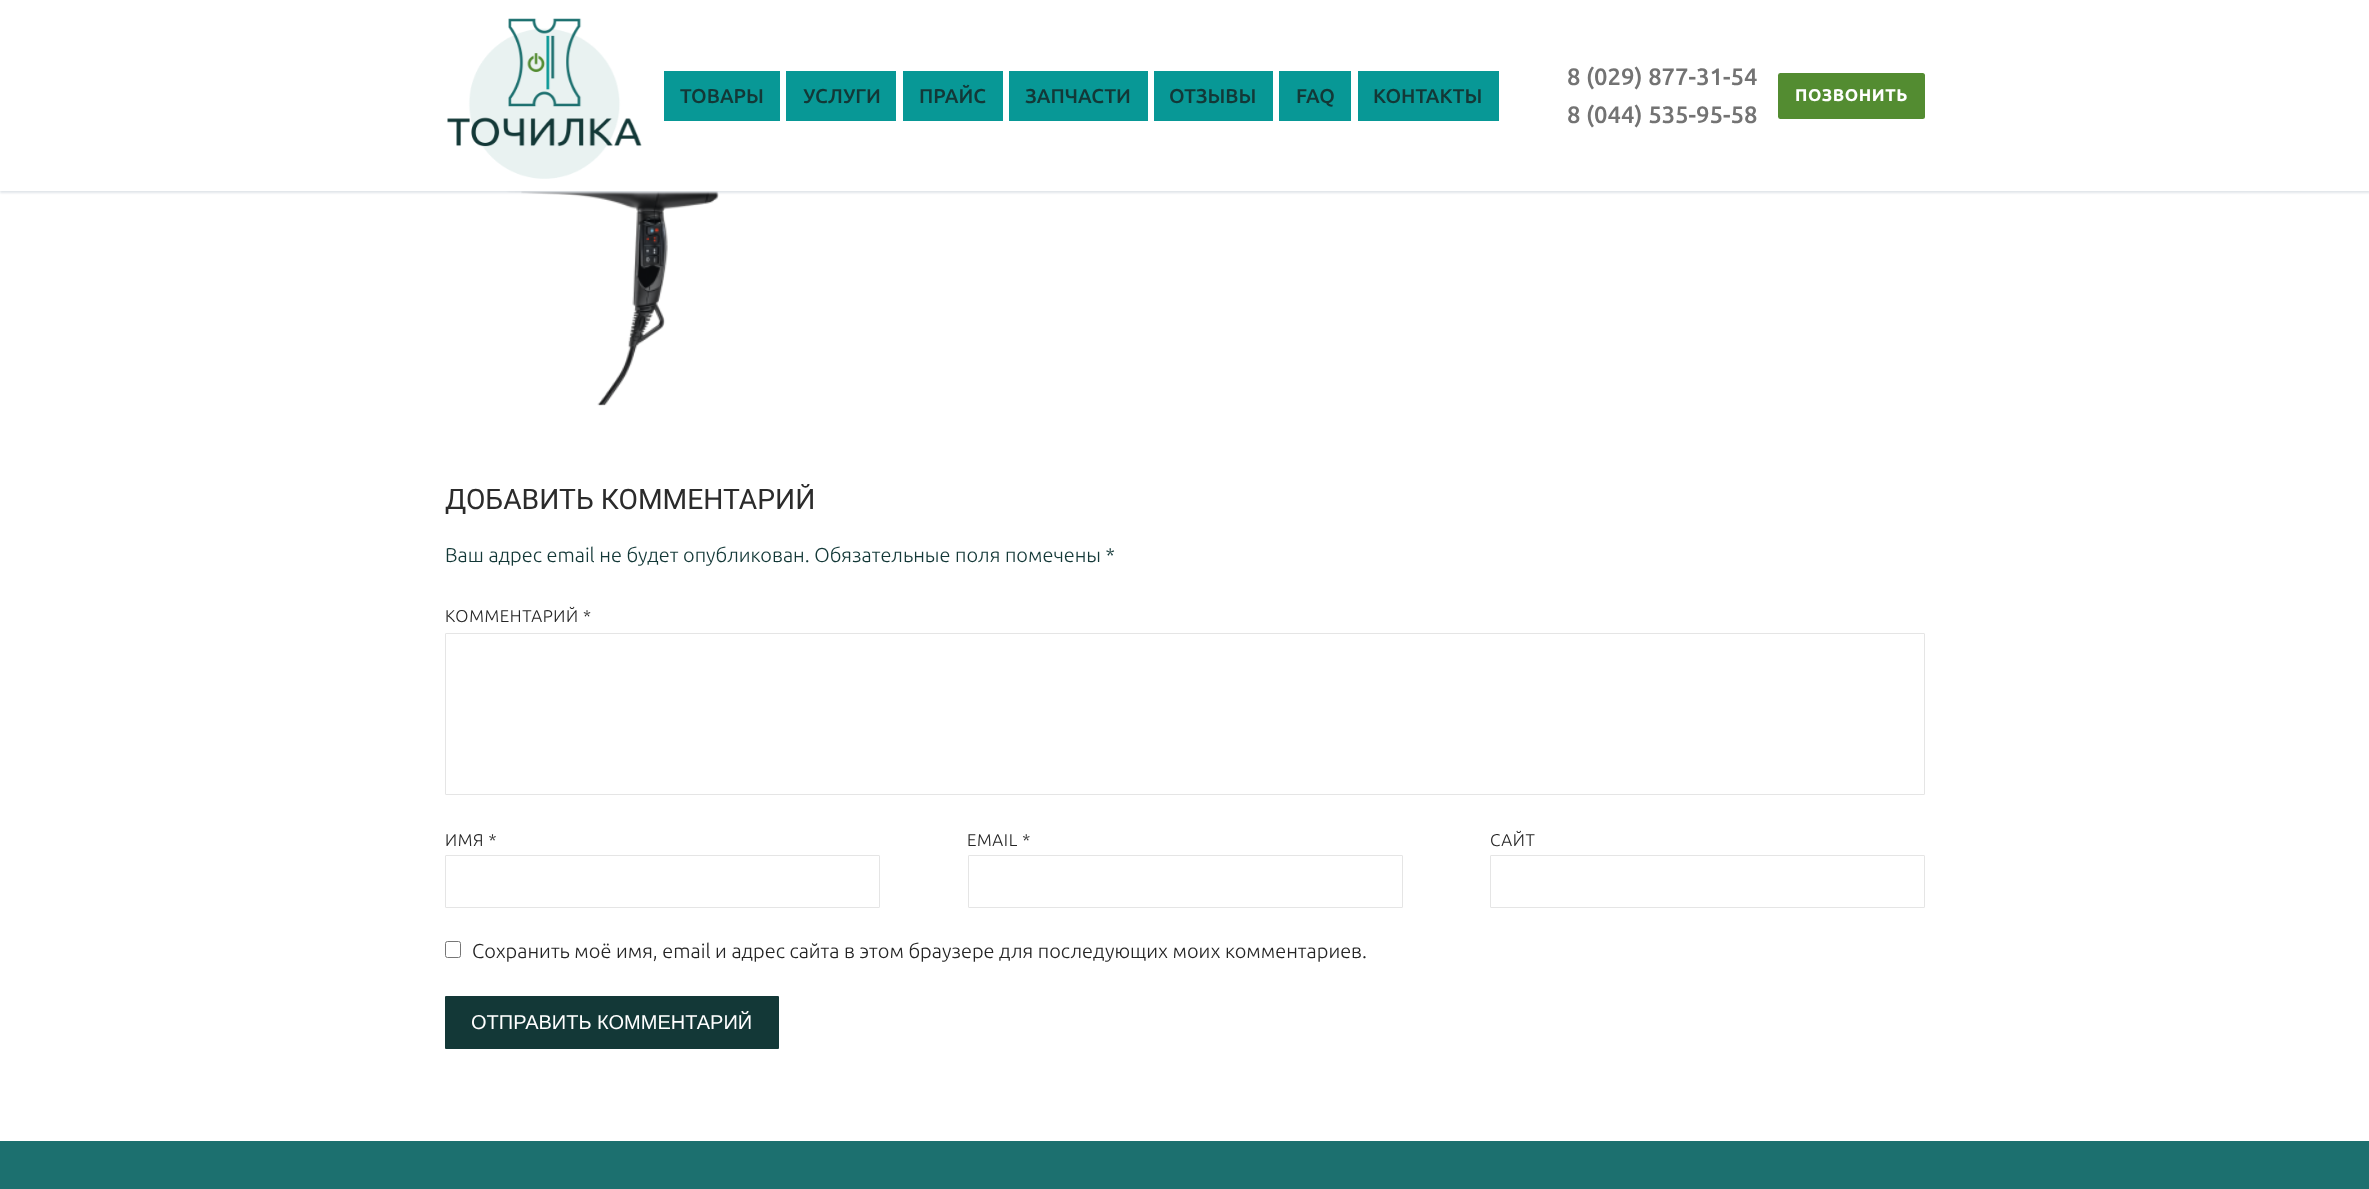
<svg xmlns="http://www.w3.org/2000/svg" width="2369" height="1189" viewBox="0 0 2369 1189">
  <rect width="100%" height="100%" fill="#fff"/>
  <image x="505" y="191" width="214" height="215" href="img/2.png"/>
  <path d="M0 1h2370v192H0z" fill="#e1e5ea" filter="blur(1px)"/>
  <path d="M0 0h2369v191H0z" fill="#fff"/>
  <image x="447" y="18" width="195" height="161" href="img/1.png"/>
  <path d="M664 71h116v50H664z" fill="#089896"/>
  <path d="M786 71h110v50H786z" fill="#089896"/>
  <path d="M903 71h100v50H903z" fill="#089896"/>
  <path d="M1009 71h139v50H1009z" fill="#089896"/>
  <path d="M1154 71h119v50H1154z" fill="#089896"/>
  <path d="M1279 71h72v50H1279z" fill="#089896"/>
  <path d="M1358 71h141v50H1358z" fill="#089896"/>
  <rect x="1778" y="73" width="147" height="46" rx="2.5" fill="#538c31"/>
  <rect x="445.5" y="633.5" width="1479" height="161" rx="0.5" fill="none" stroke="#e5e5e5"/>
  <rect x="445.5" y="855.5" width="434" height="52" rx="0.5" fill="none" stroke="#e5e5e5"/>
  <rect x="968.5" y="855.5" width="434" height="52" rx="0.5" fill="none" stroke="#e5e5e5"/>
  <rect x="1490.5" y="855.5" width="434" height="52" rx="0.5" fill="none" stroke="#e5e5e5"/>
  <rect x="445.5" y="941.5" width="15" height="16" rx="2" fill="none" stroke="#767676"/>
  <rect x="445" y="996" width="334" height="53" rx="1" fill="#133837"/>
  <path d="M0 1141h2369v48H0z" fill="#1c706f"/>
  <g font-family="Ubuntu" font-size="20" font-weight="500" fill="#133837">
    <text x="680" y="103">ТОВАРЫ</text>
    <text x="803" y="103">УСЛУГИ</text>
    <text x="919" y="103">ПРАЙС</text>
    <text x="1025" y="103">ЗАПЧАСТИ</text>
    <text x="1169" y="103">ОТЗЫВЫ</text>
    <text x="1296" y="103">FAQ</text>
    <text x="1373" y="103">КОНТАКТЫ</text>
  </g>
  <g font-family="Ubuntu" font-size="23.75" font-weight="500" fill="#737373">
    <text x="1567" y="85">8 (029) 877-31-54</text>
    <text x="1567" y="123">8 (044) 535-95-58</text>
  </g>
  <text x="1795" y="101" font-family="Ubuntu" font-size="17" font-weight="bold" letter-spacing="0.6" fill="#fff">ПОЗВОНИТЬ</text>
  <text x="445" y="509" font-family="Roboto" font-size="28.25" fill="#2b2b2b">ДОБАВИТЬ КОММЕНТАРИЙ</text>
  <text x="445" y="562" font-family="Ubuntu" font-size="20" font-weight="300" fill="#133837">Ваш адрес email не будет опубликован. Обязательные поля помечены *</text>
  <g font-family="Ubuntu" font-size="17" font-weight="300" letter-spacing="0.6" fill="#252525">
    <text x="445" y="622">КОММЕНТАРИЙ *</text>
    <text x="445" y="846">ИМЯ *</text>
    <text x="967" y="846">EMAIL *</text>
    <text x="1490" y="846">САЙТ</text>
  </g>
  <text x="472" y="958" font-family="Ubuntu" font-size="20" font-weight="300" fill="#252525">Сохранить моё имя, email и адрес сайта в этом браузере для последующих моих комментариев.</text>
  <text x="471" y="1029" font-family="Liberation Sans" font-size="20" fill="#fff">ОТПРАВИТЬ КОММЕНТАРИЙ</text>
</svg>
